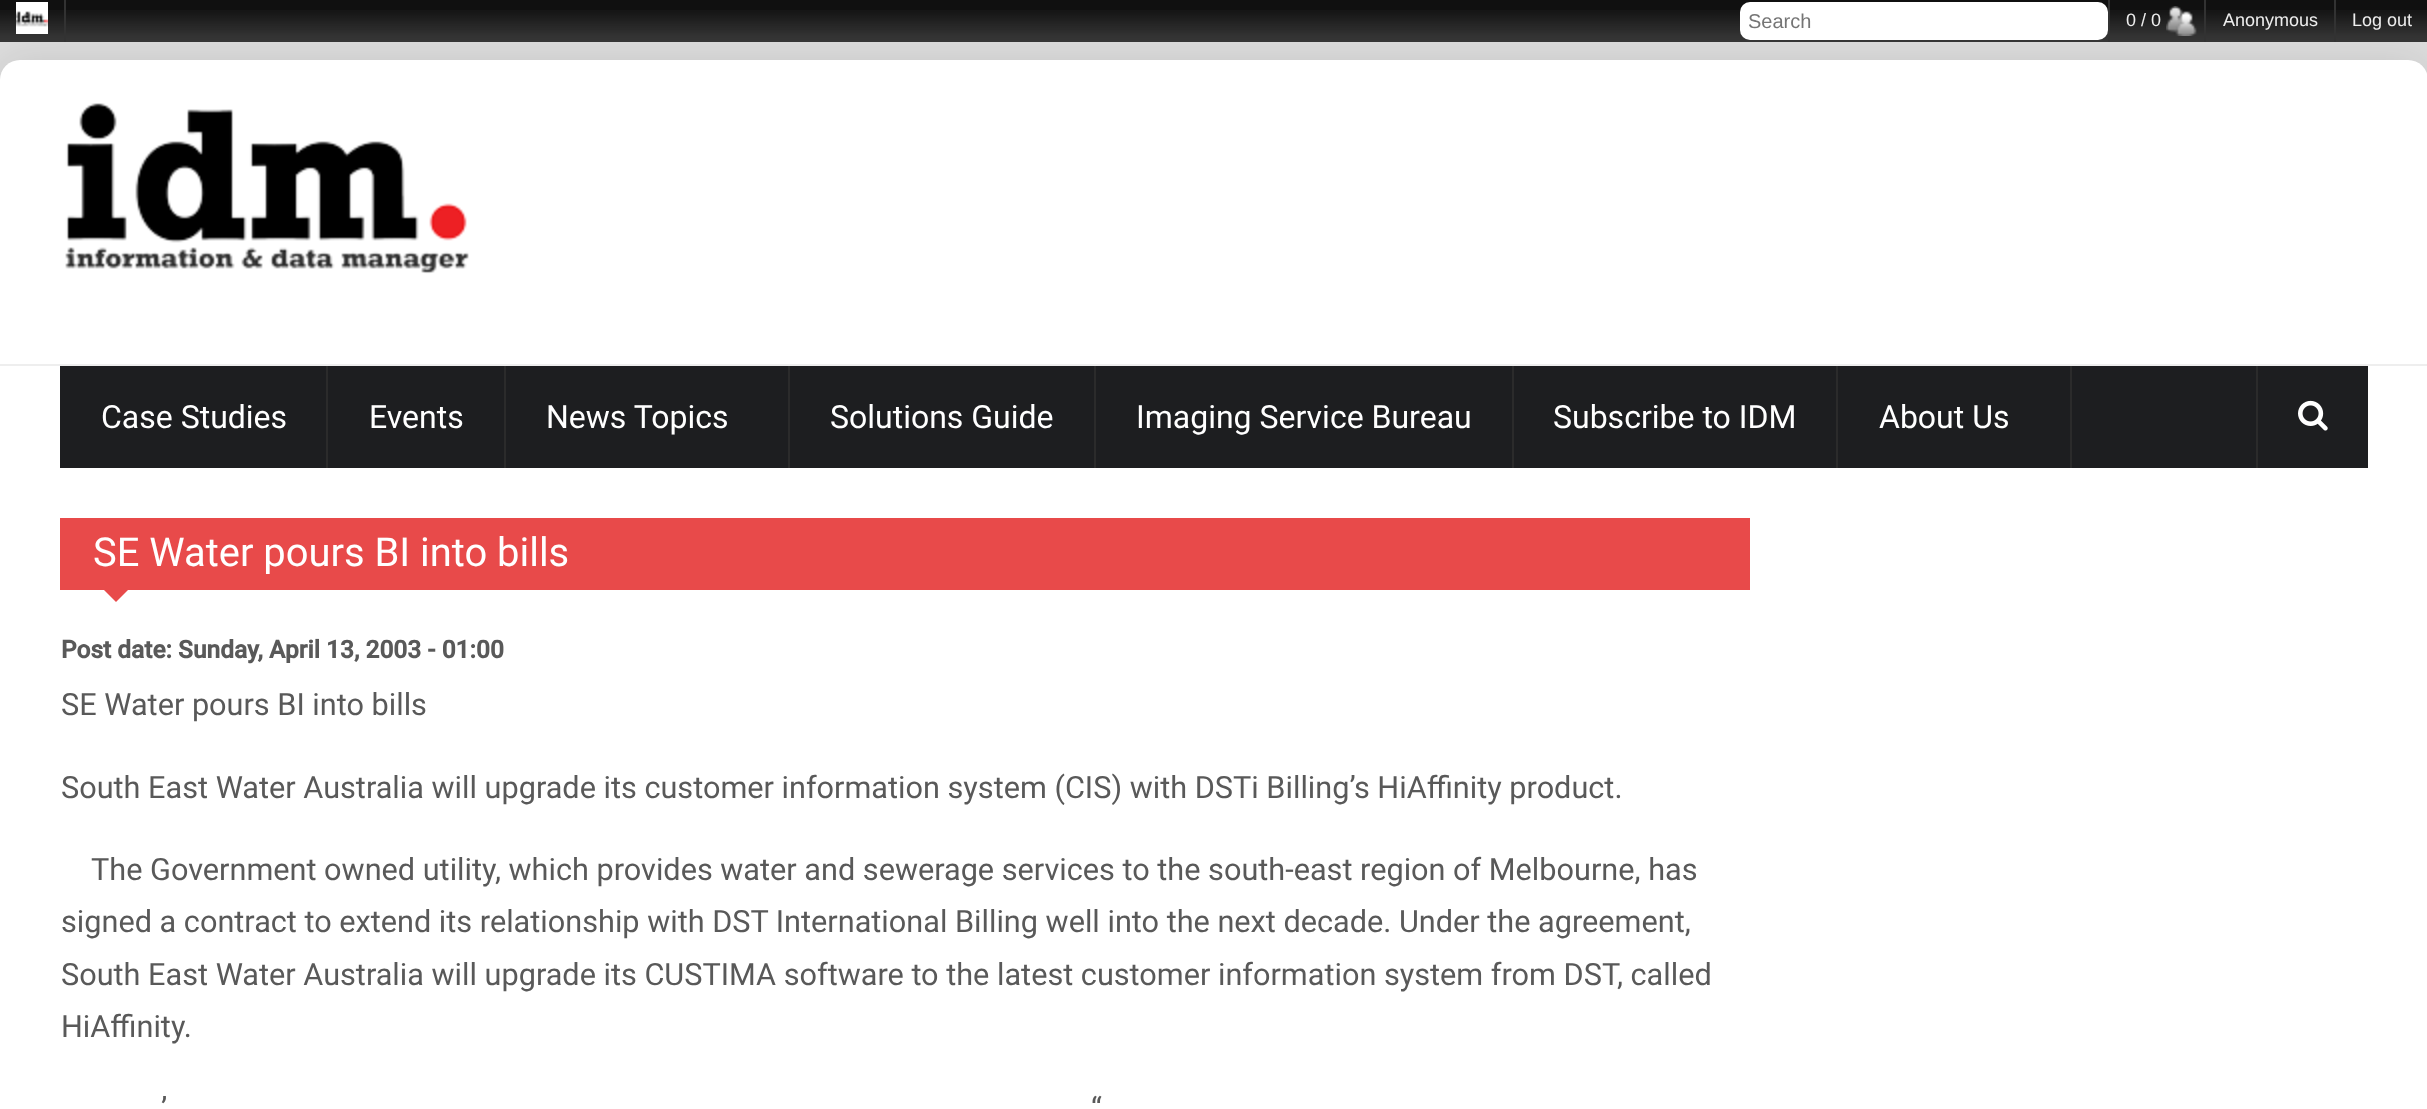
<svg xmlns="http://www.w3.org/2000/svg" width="2427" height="1109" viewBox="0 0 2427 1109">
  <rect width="100%" height="100%" fill="#ddd"/>
  <rect y="60" width="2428" height="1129" rx="20" fill="#0000001a" filter="blur(20px)"/>
  <path d="M0 0h2427v10H0z" fill="#101010"/>
  <image x="0" y="10" width="2427" height="32" href="img/1.png"/>
  <path d="M64 0h2v42H64z" fill="#323232"/>
  <image x="16" y="2" width="32" height="32" href="img/2.png"/>
  <rect x="1740" y="2" width="368" height="38" rx="10" fill="#fff"/>
  <image x="2166" y="6" width="31" height="30" href="img/3.png"/>
  <path d="M2108 0h2v42H2108z" fill="#323232"/>
  <path d="M2204 0h2v42H2204z" fill="#323232"/>
  <path d="M2334 0h2v42H2334z" fill="#323232"/>
  <rect y="60" width="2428" height="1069" rx="20" fill="#fff"/>
  <image x="65" y="103" width="404" height="171" href="img/4.png"/>
  <path d="M0 364h2427v2H0z" fill="#eee"/>
  <path d="M60 366h2308v102H60z" fill="#1d1e20"/>
  <path d="M326 366h2v102H326z" fill="#2b2b2b"/>
  <path d="M504 366h2v102H504z" fill="#2b2b2b"/>
  <path d="M788 366h2v102H788z" fill="#2b2b2b"/>
  <path d="M1094 366h2v102H1094z" fill="#2b2b2b"/>
  <path d="M1512 366h2v102H1512z" fill="#2b2b2b"/>
  <path d="M1836 366h2v102H1836z" fill="#2b2b2b"/>
  <path d="M2070 366h2v102H2070z" fill="#2b2b2b"/>
  <path d="M2256 366h2v102H2256z" fill="#2b2b2b"/>
  <image x="2298" y="400" width="30" height="31" href="img/5.png"/>
  <path d="M60 518h1690v72H60z" fill="#e84a4a"/>
  <path d="M104 590H128L116 602Z" fill="#e84a4a"/>
  <text x="1748" y="28" font-family="Liberation Sans" font-size="20" fill="#757575">Search</text>
  <g font-family="Liberation Sans" font-size="18" fill="#eee">
    <text x="2126" y="26">0 / 0</text>
    <text x="2223" y="26">Anonymous</text>
    <text x="2352" y="26">Log out</text>
  </g>
  <g font-family="Roboto" font-size="32" fill="#fff">
    <text x="101" y="428">Case Studies</text>
    <text x="369" y="428">Events</text>
    <text x="546" y="428">News Topics</text>
    <text x="830" y="428">Solutions Guide</text>
    <text x="1136" y="428">Imaging Service Bureau</text>
    <text x="1553" y="428">Subscribe to IDM</text>
    <text x="1879" y="428">About Us</text>
  </g>
  <text x="93" y="566" font-family="Roboto" font-size="39.9" fill="#fff">SE Water pours BI into bills</text>
  <text x="61" y="658" font-family="Roboto" font-size="24.5" font-weight="bold" fill="#595959">Post date: Sunday, April 13, 2003 - 01:00</text>
  <g font-family="Roboto" font-size="30.67" fill="#595959">
    <text x="61" y="715">SE Water pours BI into bills</text>
    <text x="61" y="798">South East Water Australia will upgrade its customer information system (CIS) with DSTi Billing’s HiAffinity product.</text>
    <text x="91" y="880">The Government owned utility, which provides water and sewerage services to the south-east region of Melbourne, has</text>
    <text x="61" y="932">signed a contract to extend its relationship with DST International Billing well into the next decade. Under the agreement,</text>
    <text x="61" y="985">South East Water Australia will upgrade its CUSTIMA software to the latest customer information system from DST, called</text>
    <text x="61" y="1037">HiAffinity.</text>
    <text x="161" y="1119">’</text>
    <text x="1091" y="1119">“</text>
  </g>
</svg>
